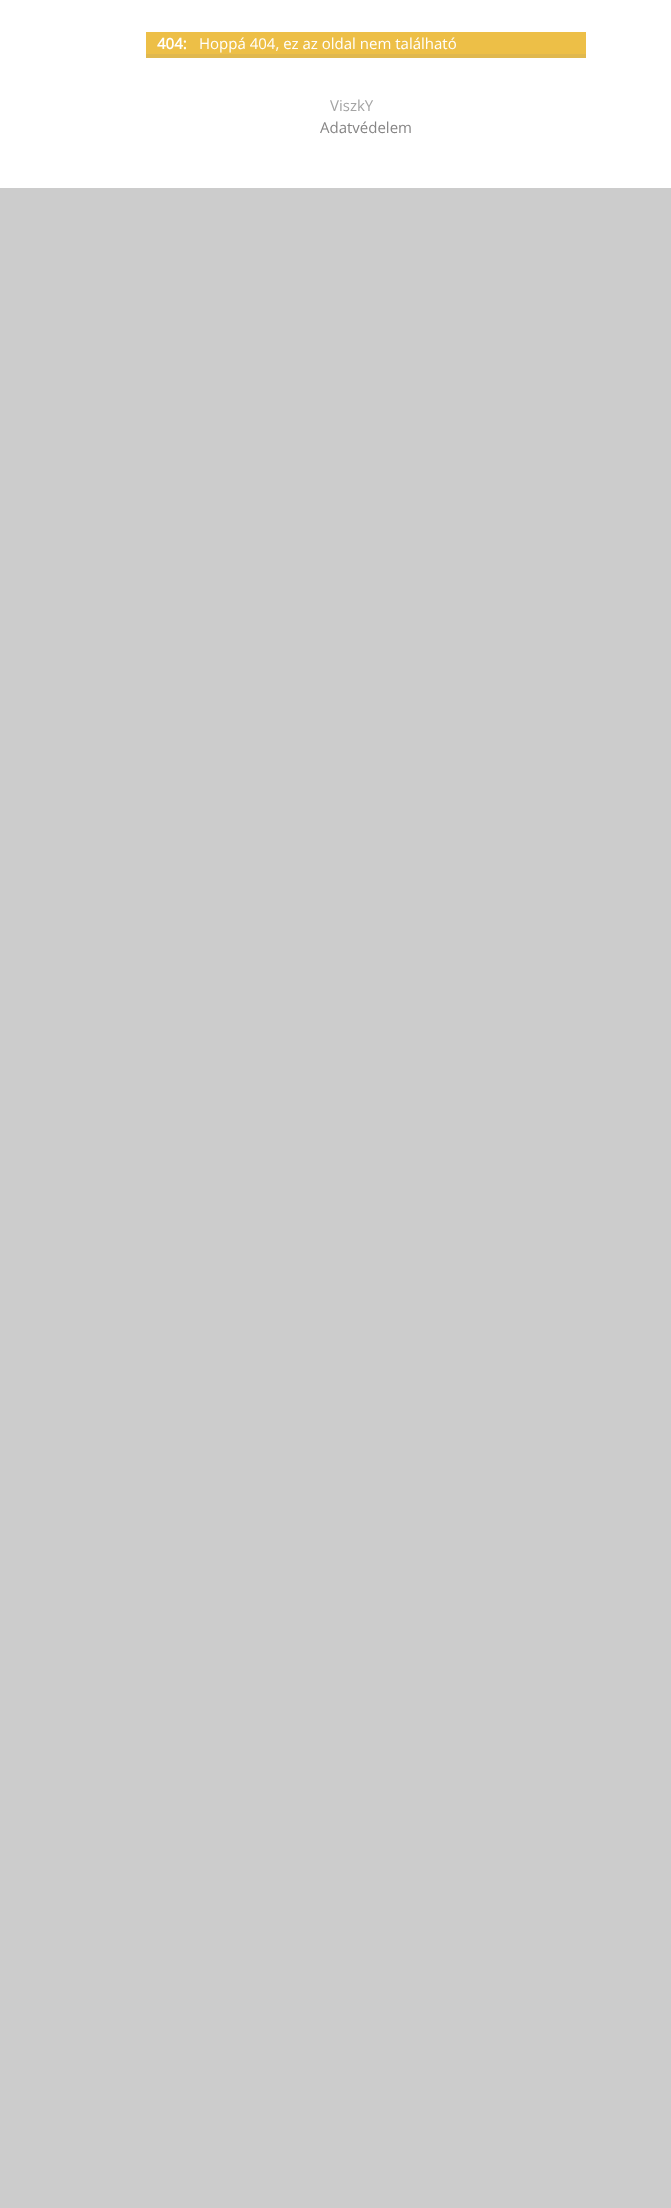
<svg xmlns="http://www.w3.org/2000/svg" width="671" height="2208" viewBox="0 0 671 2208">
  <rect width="100%" height="100%" fill="#ccc"/>
  <path d="M0 0h671v188H0z" fill="#fff"/>
  <path d="M146 54h440v4H146z" fill="#e0b84e"/>
  <path d="M146 32h440v22H146z" fill="#edbf47"/>
  <text x="157" y="49" font-family="Open Sans" font-size="15" font-weight="bold" fill="#fff">404:</text>
  <text x="199" y="49" font-family="Open Sans" font-size="15" fill="#fff">Hoppá 404, ez az oldal nem található</text>
  <text x="330" y="111" font-family="Open Sans" font-size="15" fill="#a4a4a4">ViszkY</text>
  <text x="320" y="133" font-family="Open Sans" font-size="15" fill="#868585">Adatvédelem</text>
</svg>
